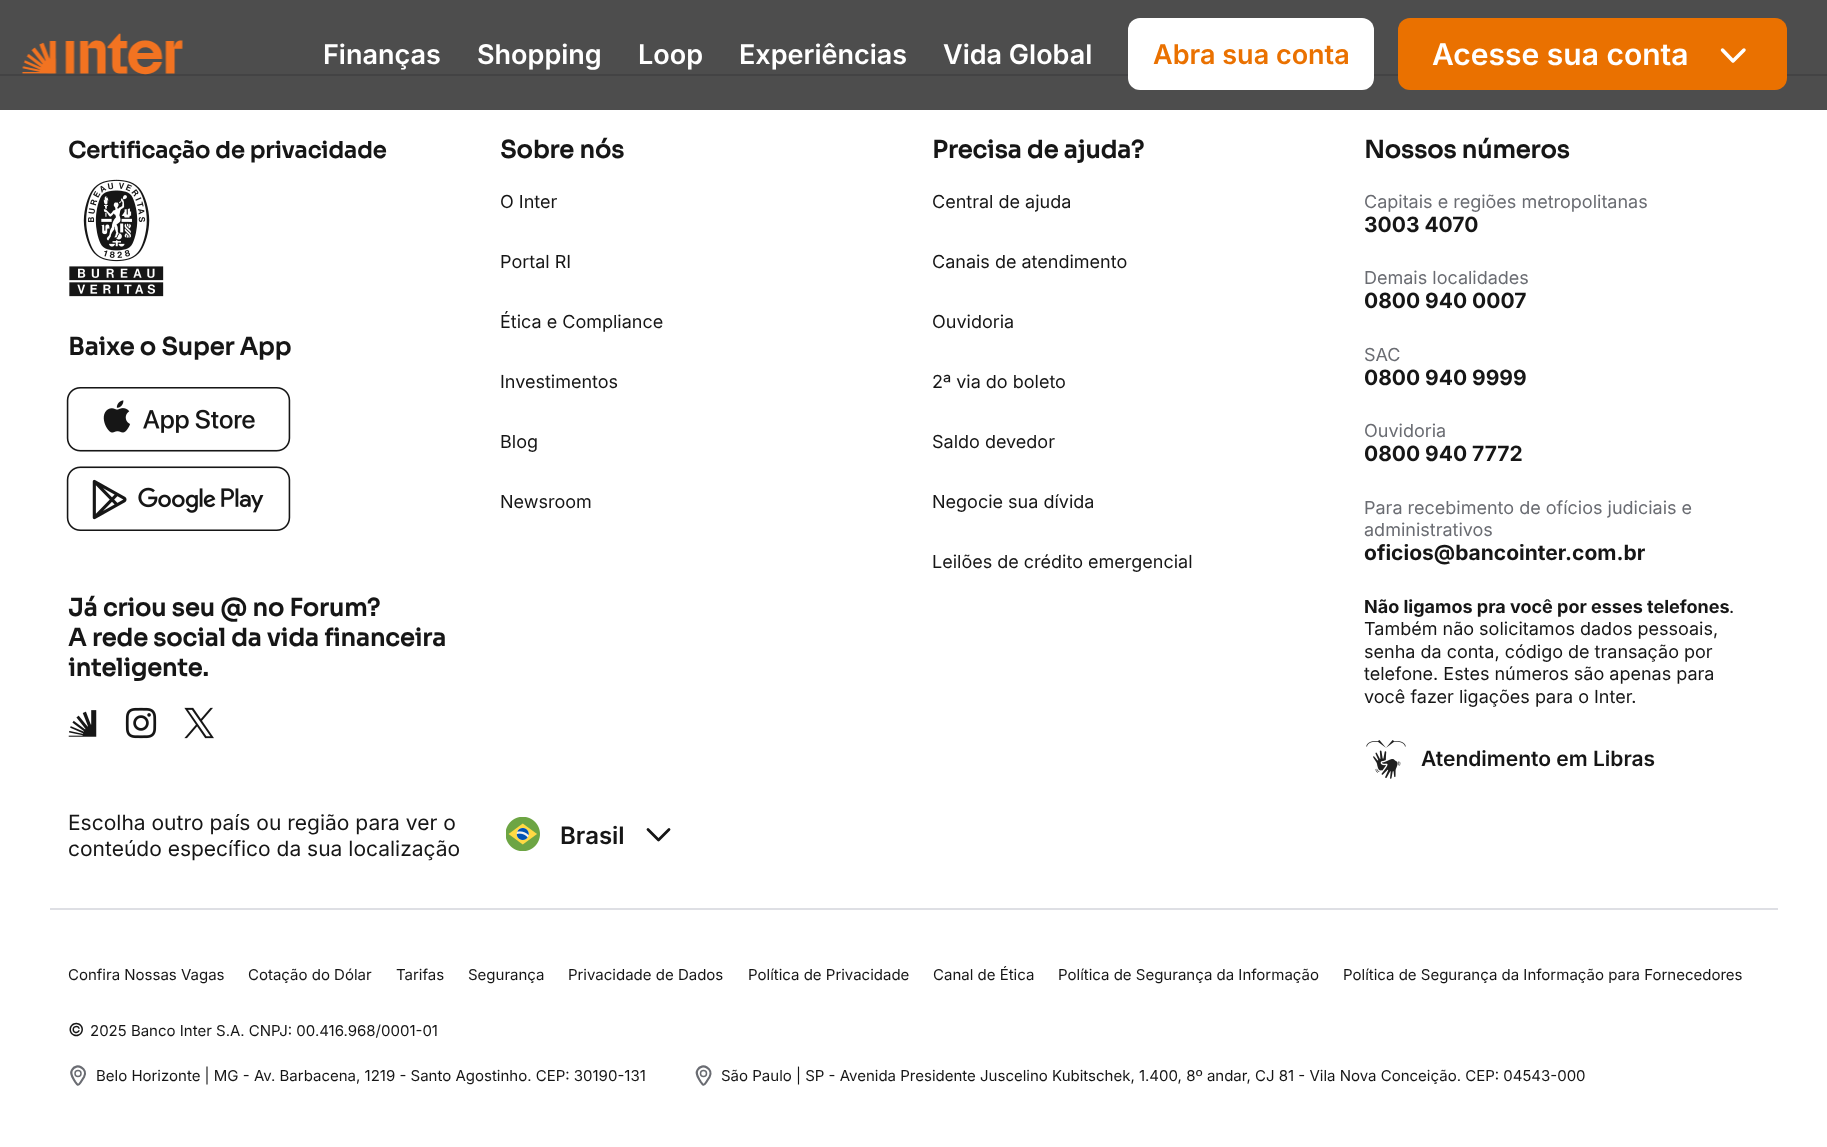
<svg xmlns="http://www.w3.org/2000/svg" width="1827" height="1147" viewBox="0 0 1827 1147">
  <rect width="100%" height="100%" fill="#fff"/>
  <path d="M0 0h1827v110H0z" fill="#4d4d4d"/>
  <path d="M0 74h1827v2H0z" fill="#434344"/>
  <image x="21" y="33" width="162" height="42" href="img/1.png"/>
  <rect x="1128" y="18" width="246" height="72" rx="12" fill="#fff"/>
  <rect x="1398" y="18" width="389" height="72" rx="12" fill="#ea7100"/>
  <path d="M1744 50L1733 61L1722.5 50" fill="none" stroke="#fff" stroke-width="3.5" stroke-linecap="round" stroke-linejoin="round"/>
  <image x="69" y="179" width="95" height="118" href="img/2.png"/>
  <image x="66" y="387" width="225" height="65" href="img/3.png"/>
  <image x="66" y="466" width="225" height="65" href="img/4.png"/>
  <image x="68" y="710" width="29" height="27" href="img/5.png"/>
  <image x="125" y="707" width="32" height="32" href="img/6.png"/>
  <image x="184" y="707" width="30" height="32" href="img/7.png"/>
  <image x="1366" y="740" width="40" height="39" href="img/8.png"/>
  <image x="506" y="817" width="34" height="34" href="img/9.png"/>
  <path d="M669 829.5L658.5 840L648 829.5" fill="none" stroke="#161616" stroke-width="2.8" stroke-linecap="round" stroke-linejoin="round"/>
  <path d="M50 908h1728v2H50z" fill="#dedfe4"/>
  <path d="M84 1077L80.5 1082.5C78 1086.5 77 1084.5 75 1081.5C73 1078 69.5 1074 72 1070C76.5 1062 88.5 1069 84 1077Z" fill="none" stroke="#6a6c72" stroke-width="2.2" stroke-linecap="round" stroke-linejoin="round"/>
  <circle cx="78" cy="1073.5" r="3" fill="none" stroke="#6a6c72" stroke-width="1.5"/>
  <path d="M709.5 1077L706 1082.5C703.5 1086.5 702.5 1084.5 700.5 1081.5C698.5 1078 695 1074 697.5 1070C702 1062 714 1069 709.5 1077Z" fill="none" stroke="#6a6c72" stroke-width="2.2" stroke-linecap="round" stroke-linejoin="round"/>
  <circle cx="703.5" cy="1073.5" r="3" fill="none" stroke="#6a6c72" stroke-width="1.5"/>
  <g font-family="Inter" font-size="27" font-weight="600" fill="#fff">
    <text x="323" y="64">Finanças</text>
    <text x="477" y="64">Shopping</text>
    <text x="638" y="64">Loop</text>
    <text x="739" y="64">Experiências</text>
    <text x="943" y="64">Vida Global</text>
  </g>
  <text x="1153" y="64" font-family="Inter" font-size="27" font-weight="600" fill="#ea7100">Abra sua conta</text>
  <text x="1432" y="65" font-family="Inter" font-size="30" font-weight="600" fill="#fff">Acesse sua conta</text>
  <text x="68" y="158" font-family="Sora" font-size="22.5" font-weight="bold" fill="#161616">Certificação de privacidade</text>
  <g font-family="Sora" font-size="24" font-weight="bold" fill="#161616">
    <text x="68" y="355">Baixe o Super App</text>
    <text x="68" y="616">Já criou seu @ no Forum?</text>
    <text x="68" y="646">A rede social da vida financeira</text>
    <text x="68" y="676">inteligente.</text>
    <text x="500" y="158">Sobre nós</text>
  </g>
  <g font-family="Inter" font-size="18" fill="#161616">
    <text x="500" y="208">O Inter</text>
    <text x="500" y="268">Portal RI</text>
    <text x="500" y="328">Ética e Compliance</text>
    <text x="500" y="388">Investimentos</text>
    <text x="500" y="448">Blog</text>
    <text x="500" y="508">Newsroom</text>
  </g>
  <text x="932" y="158" font-family="Sora" font-size="24" font-weight="bold" fill="#161616">Precisa de ajuda?</text>
  <g font-family="Inter" font-size="18" fill="#161616">
    <text x="932" y="208">Central de ajuda</text>
    <text x="932" y="268">Canais de atendimento</text>
    <text x="932" y="328">Ouvidoria</text>
    <text x="932" y="388">2ª via do boleto</text>
    <text x="932" y="448">Saldo devedor</text>
    <text x="932" y="508">Negocie sua dívida</text>
    <text x="932" y="568">Leilões de crédito emergencial</text>
  </g>
  <text x="1364" y="158" font-family="Sora" font-size="24" font-weight="bold" fill="#161616">Nossos números</text>
  <text x="1364" y="208" font-family="Inter" font-size="18" fill="#6a6c72">Capitais e regiões metropolitanas</text>
  <text x="1364" y="232" font-family="Inter" font-size="21" font-weight="bold" fill="#161616">3003 4070</text>
  <text x="1364" y="284" font-family="Inter" font-size="18" fill="#6a6c72">Demais localidades</text>
  <text x="1364" y="308" font-family="Inter" font-size="21" font-weight="bold" fill="#161616">0800 940 0007</text>
  <text x="1364" y="361" font-family="Inter" font-size="18" fill="#6a6c72">SAC</text>
  <text x="1364" y="385" font-family="Inter" font-size="21" font-weight="bold" fill="#161616">0800 940 9999</text>
  <text x="1364" y="437" font-family="Inter" font-size="18" fill="#6a6c72">Ouvidoria</text>
  <text x="1364" y="461" font-family="Inter" font-size="21" font-weight="bold" fill="#161616">0800 940 7772</text>
  <g font-family="Inter" font-size="18" fill="#6a6c72">
    <text x="1364" y="514">Para recebimento de ofícios judiciais e</text>
    <text x="1364" y="536">administrativos</text>
  </g>
  <text x="1364" y="560" font-family="Inter" font-size="21" font-weight="bold" fill="#161616">oficios@bancointer.com.br</text>
  <text x="1364" y="613" font-family="Inter" font-size="18" font-weight="bold" fill="#161616">Não ligamos pra você por esses telefones</text>
  <g font-family="Inter" font-size="18" fill="#161616">
    <text x="1729" y="613">.</text>
    <text x="1364" y="635">Também não solicitamos dados pessoais,</text>
    <text x="1364" y="658">senha da conta, código de transação por</text>
    <text x="1364" y="680">telefone. Estes números são apenas para</text>
    <text x="1364" y="703">você fazer ligações para o Inter.</text>
  </g>
  <text x="1421" y="766" font-family="Inter" font-size="21" font-weight="600" fill="#161616">Atendimento em Libras</text>
  <g font-family="Inter" font-size="21" fill="#161616">
    <text x="68" y="830">Escolha outro país ou região para ver o</text>
    <text x="68" y="856">conteúdo específico da sua localização</text>
  </g>
  <text x="560" y="844" font-family="Inter" font-size="24" font-weight="600" fill="#161616">Brasil</text>
  <g font-family="Inter" font-size="15" fill="#161616">
    <text x="68" y="980">Confira Nossas Vagas</text>
    <text x="248" y="980">Cotação do Dólar</text>
    <text x="396" y="980">Tarifas</text>
    <text x="468" y="980">Segurança</text>
    <text x="568" y="980">Privacidade de Dados</text>
    <text x="748" y="980">Política de Privacidade</text>
    <text x="933" y="980">Canal de Ética</text>
    <text x="1058" y="980">Política de Segurança da Informação</text>
    <text x="1343" y="980">Política de Segurança da Informação para Fornecedores</text>
  </g>
  <text x="68" y="1036" font-family="Inter" font-size="18" fill="#161616">©</text>
  <g font-family="Inter" font-size="15" fill="#161616">
    <text x="90" y="1036">2025 Banco Inter S.A. CNPJ: 00.416.968/0001-01</text>
    <text x="96" y="1081">Belo Horizonte | MG - Av. Barbacena, 1219 - Santo Agostinho. CEP: 30190-131</text>
    <text x="721" y="1081">São Paulo | SP - Avenida Presidente Juscelino Kubitschek, 1.400, 8º andar, CJ 81 - Vila Nova Conceição. CEP: 04543-000</text>
  </g>
</svg>
